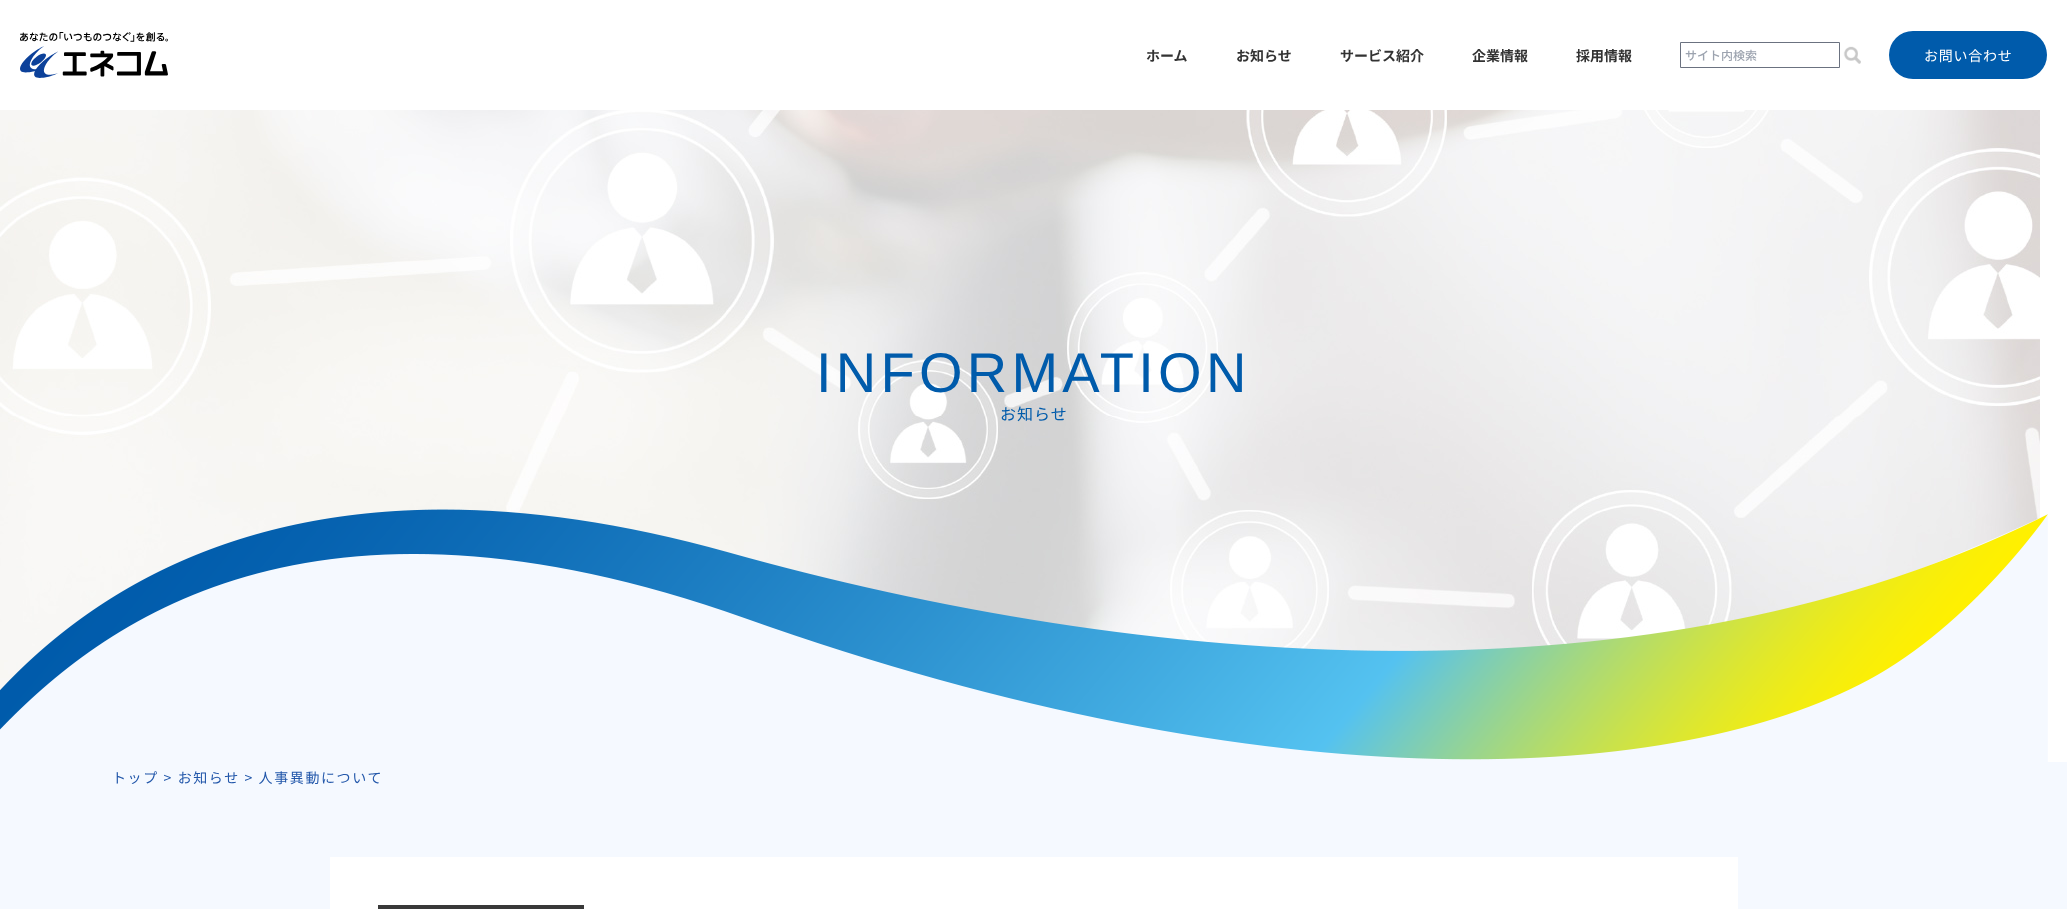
<svg xmlns="http://www.w3.org/2000/svg" width="2067" height="909" viewBox="0 0 2067 909">
  <rect width="100%" height="100%" fill="#fff"/>
  <image x="20" y="32" width="148" height="46" href="img/1.png"/>
  <path d="M1680.5 42.5h159v25H1680.5z" fill="none" stroke="#6b7280"/>
  <image x="1843" y="46" width="18" height="18" href="img/2.png"/>
  <rect x="1889" y="31" width="158" height="48" rx="24" fill="#005bab"/>
  <image x="0" y="110" width="2040" height="581" href="img/3.png"/>
  <image x="0" y="509" width="2048" height="253" href="img/4.png"/>
  <path d="M0 762h2067v147H0z" fill="#f5f9ff"/>
  <path d="M330 857h1408v52H330z" fill="#fff"/>
  <path d="M378 905h206v4H378z" fill="#393939"/>
  <g font-family="Noto Sans JP" font-size="14" font-weight="bold" fill="#333">
    <text x="1146" y="61">ホーム</text>
    <text x="1236" y="61">お知らせ</text>
    <text x="1340" y="61">サービス紹介</text>
    <text x="1472" y="61">企業情報</text>
    <text x="1576" y="61">採用情報</text>
  </g>
  <text x="1685" y="60" font-family="Noto Sans JP" font-size="12" font-weight="500" fill="#9ca3af">サイト内検索</text>
  <text x="1924" y="61" font-family="Noto Sans JP" font-size="14" font-weight="100" letter-spacing="0.75" fill="#fff">お問い合わせ</text>
  <text x="816" y="392" font-family="Liberation Sans" font-size="56" letter-spacing="4.25" fill="#005bab">INFORMATION</text>
  <text x="1000" y="420" font-family="Noto Sans JP" font-size="16" font-weight="100" letter-spacing="1" fill="#005bab">お知らせ</text>
  <text x="112" y="783" font-family="Noto Sans JP" font-size="14" font-weight="100" letter-spacing="1.6" fill="#2257aa">トップ &gt; お知らせ &gt; 人事異動について</text>
</svg>
